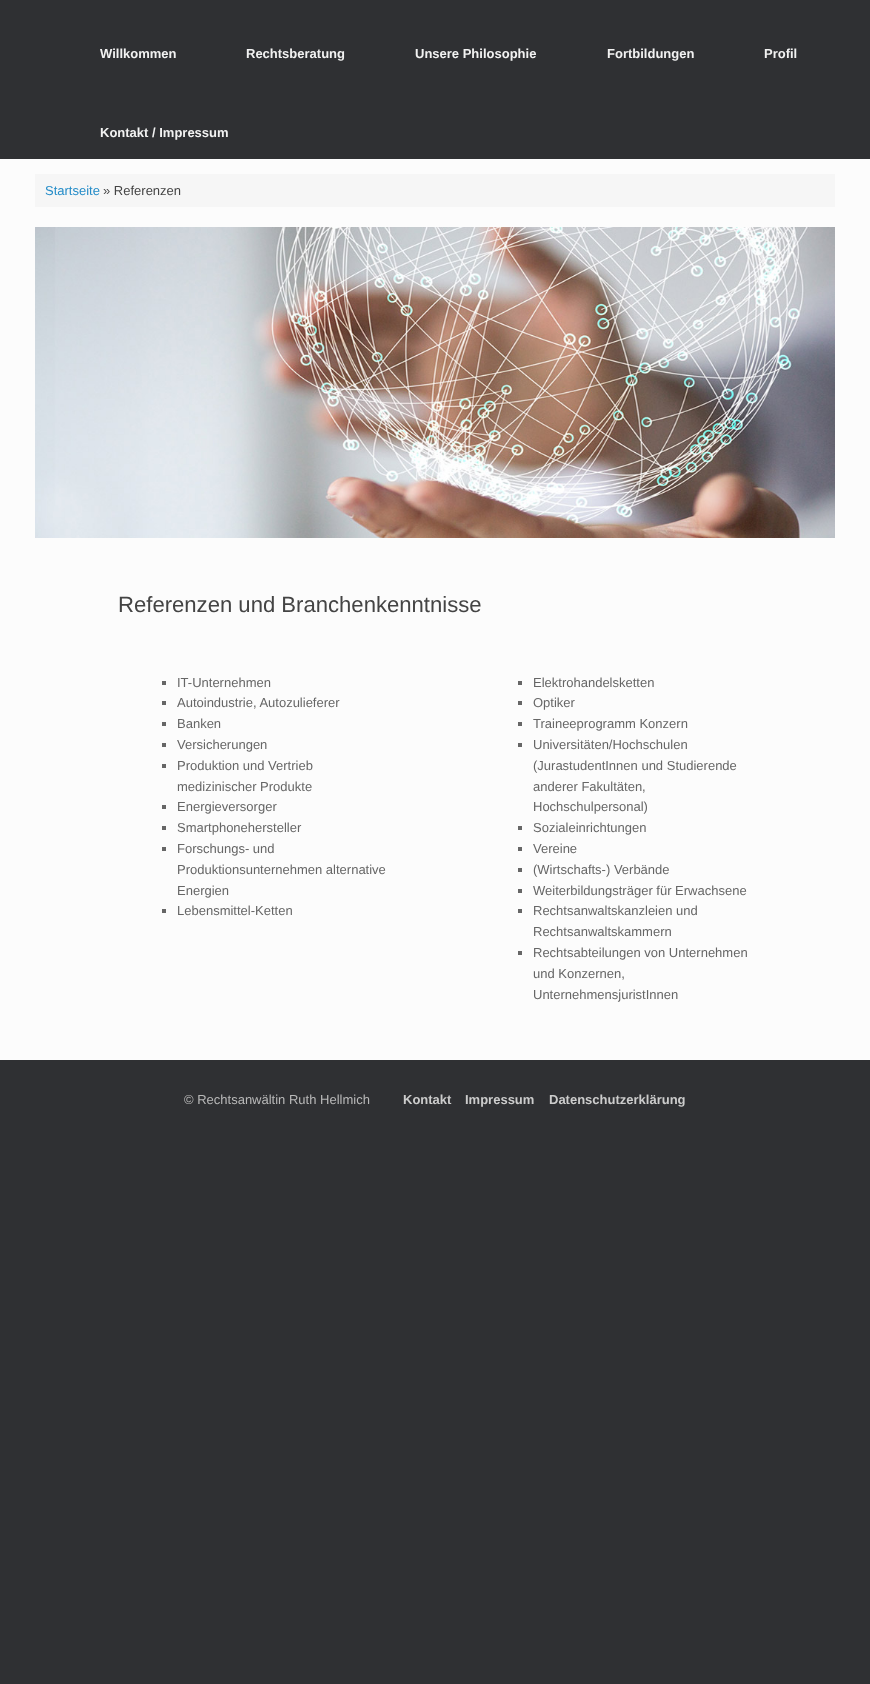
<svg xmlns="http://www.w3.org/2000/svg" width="870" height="1684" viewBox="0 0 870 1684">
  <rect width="100%" height="100%" fill="#2f3033"/>
  <path d="M0 159h870v901H0z" fill="#fcfcfc"/>
  <path d="M35 174h800v33H35z" fill="#f6f6f6"/>
  <image x="35" y="227" width="800" height="311" href="img/1.png"/>
  <path d="M162 681h4v4H162z" fill="#666"/>
  <path d="M162 701h4v4H162z" fill="#666"/>
  <path d="M162 722h4v4H162z" fill="#666"/>
  <path d="M162 743h4v4H162z" fill="#666"/>
  <path d="M162 764h4v4H162z" fill="#666"/>
  <path d="M162 805h4v4H162z" fill="#666"/>
  <path d="M162 826h4v4H162z" fill="#666"/>
  <path d="M162 847h4v4H162z" fill="#666"/>
  <path d="M162 909h4v4H162z" fill="#666"/>
  <path d="M518 681h4v4H518z" fill="#666"/>
  <path d="M518 701h4v4H518z" fill="#666"/>
  <path d="M518 722h4v4H518z" fill="#666"/>
  <path d="M518 743h4v4H518z" fill="#666"/>
  <path d="M518 826h4v4H518z" fill="#666"/>
  <path d="M518 847h4v4H518z" fill="#666"/>
  <path d="M518 868h4v4H518z" fill="#666"/>
  <path d="M518 889h4v4H518z" fill="#666"/>
  <path d="M518 909h4v4H518z" fill="#666"/>
  <path d="M518 951h4v4H518z" fill="#666"/>
  <g font-family="Liberation Sans" font-size="13" font-weight="bold" fill="#f2f2f2">
    <text x="100" y="58">Willkommen</text>
    <text x="246" y="58">Rechtsberatung</text>
    <text x="415" y="58">Unsere Philosophie</text>
    <text x="607" y="58">Fortbildungen</text>
    <text x="764" y="58">Profil</text>
    <text x="100" y="137">Kontakt / Impressum</text>
  </g>
  <text x="45" y="195" font-family="Liberation Sans" font-size="13" fill="#248cc8">Startseite</text>
  <text x="103" y="195" font-family="Liberation Sans" font-size="13" fill="#444">» Referenzen</text>
  <text x="118" y="612" font-family="Liberation Sans" font-size="22.1" fill="#444">Referenzen und Branchenkenntnisse</text>
  <g font-family="Liberation Sans" font-size="13" fill="#666">
    <text x="177" y="687">IT-Unternehmen</text>
    <text x="177" y="707">Autoindustrie, Autozulieferer</text>
    <text x="177" y="728">Banken</text>
    <text x="177" y="749">Versicherungen</text>
    <text x="177" y="770">Produktion und Vertrieb</text>
    <text x="177" y="791">medizinischer Produkte</text>
    <text x="177" y="811">Energieversorger</text>
    <text x="177" y="832">Smartphonehersteller</text>
    <text x="177" y="853">Forschungs- und</text>
    <text x="177" y="874">Produktionsunternehmen alternative</text>
    <text x="177" y="895">Energien</text>
    <text x="177" y="915">Lebensmittel-Ketten</text>
    <text x="533" y="687">Elektrohandelsketten</text>
    <text x="533" y="707">Optiker</text>
    <text x="533" y="728">Traineeprogramm Konzern</text>
    <text x="533" y="749">Universitäten/Hochschulen</text>
    <text x="533" y="770">(JurastudentInnen und Studierende</text>
    <text x="533" y="791">anderer Fakultäten,</text>
    <text x="533" y="811">Hochschulpersonal)</text>
    <text x="533" y="832">Sozialeinrichtungen</text>
    <text x="533" y="853">Vereine</text>
    <text x="533" y="874">(Wirtschafts-) Verbände</text>
    <text x="533" y="895">Weiterbildungsträger für Erwachsene</text>
    <text x="533" y="915">Rechtsanwaltskanzleien und</text>
    <text x="533" y="936">Rechtsanwaltskammern</text>
    <text x="533" y="957">Rechtsabteilungen von Unternehmen</text>
    <text x="533" y="978">und Konzernen,</text>
    <text x="533" y="999">UnternehmensjuristInnen</text>
  </g>
  <text x="184" y="1104" font-family="Liberation Sans" font-size="13" fill="#b9b9b9">© Rechtsanwältin Ruth Hellmich</text>
  <g font-family="Liberation Sans" font-size="13" font-weight="bold" fill="#ccc">
    <text x="403" y="1104">Kontakt</text>
    <text x="465" y="1104">Impressum</text>
    <text x="549" y="1104">Datenschutzerklärung</text>
  </g>
</svg>
